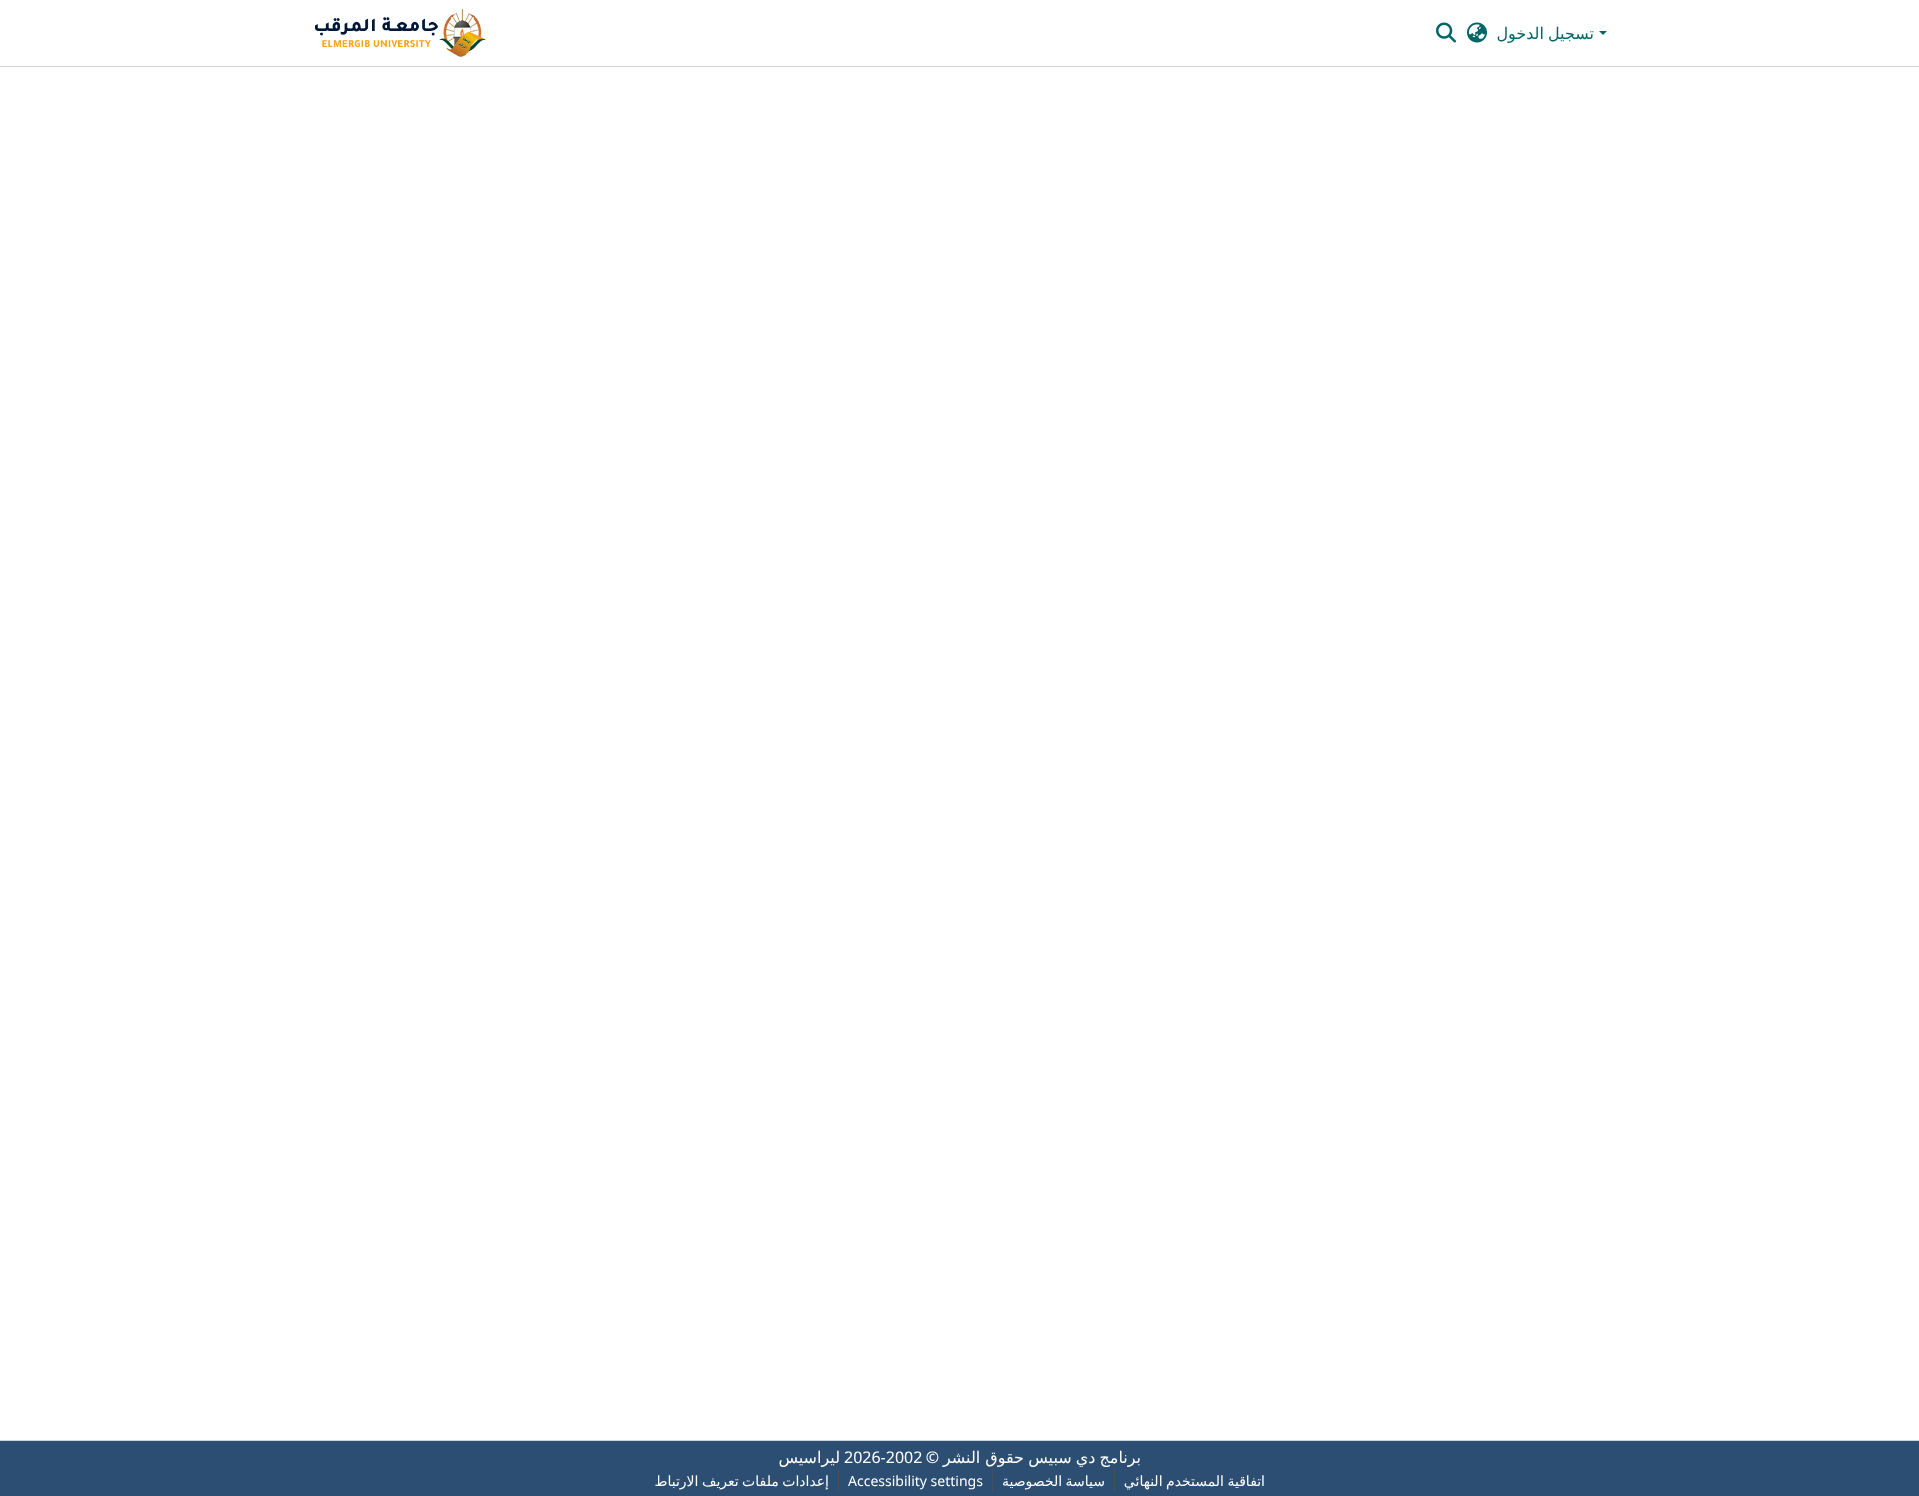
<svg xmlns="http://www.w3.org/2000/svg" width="1919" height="1496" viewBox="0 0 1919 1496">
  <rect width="100%" height="100%" fill="#fff"/>
  <path d="M0 66h1919v1H0z" fill="#ced4da"/>
  <path d="M1599 31H1607L1603 35Z" fill="#066"/>
  <image x="1467" y="22" width="20" height="21" href="img/1.png"/>
  <image x="1436" y="22" width="20" height="21" href="img/2.png"/>
  <image x="315" y="9" width="171" height="48" href="img/3.png"/>
  <path d="M0 1441h1919v55H0z" fill="#2b4e72"/>
  <path d="M0 1440h1919v1H0z" fill="#ced4da"/>
  <path d="M1114 1469h1v23H1114z" fill="#495057"/>
  <path d="M992 1469h1v23H992z" fill="#495057"/>
  <path d="M838 1469h1v23H838z" fill="#495057"/>
  <text x="1594" y="39" word-spacing="-1" font-family="DejaVu Sans" font-size="16" direction="rtl" fill="#066">تسجيل الدخول</text>
  <g font-family="DejaVu Sans" font-size="16" direction="rtl" fill="#fff">
    <text x="1141" y="1463" word-spacing="-1">برنامج دي سبيس</text>
    <text x="1024" y="1463">حقوق النشر</text>
  </g>
  <text x="939" y="1463" font-family="Noto Sans" font-size="16" direction="rtl" fill="#fff">©</text>
  <text x="844" y="1463" font-family="Noto Sans" font-size="16" fill="#fff">2026-2002</text>
  <text x="840" y="1463" font-family="DejaVu Sans" font-size="16" direction="rtl" fill="#fff">ليراسيس</text>
  <g font-family="DejaVu Sans" font-size="14" direction="rtl" fill="#fff">
    <text x="1265" y="1486" word-spacing="-1">اتفاقية المستخدم النهائي</text>
    <text x="1105" y="1486" word-spacing="-1">سياسة الخصوصية</text>
  </g>
  <text x="848" y="1486" font-family="Noto Sans" font-size="14" fill="#fff">Accessibility settings</text>
  <text x="829" y="1486" word-spacing="-1" font-family="DejaVu Sans" font-size="14" direction="rtl" fill="#fff">إعدادات ملفات تعريف الارتباط</text>
</svg>
